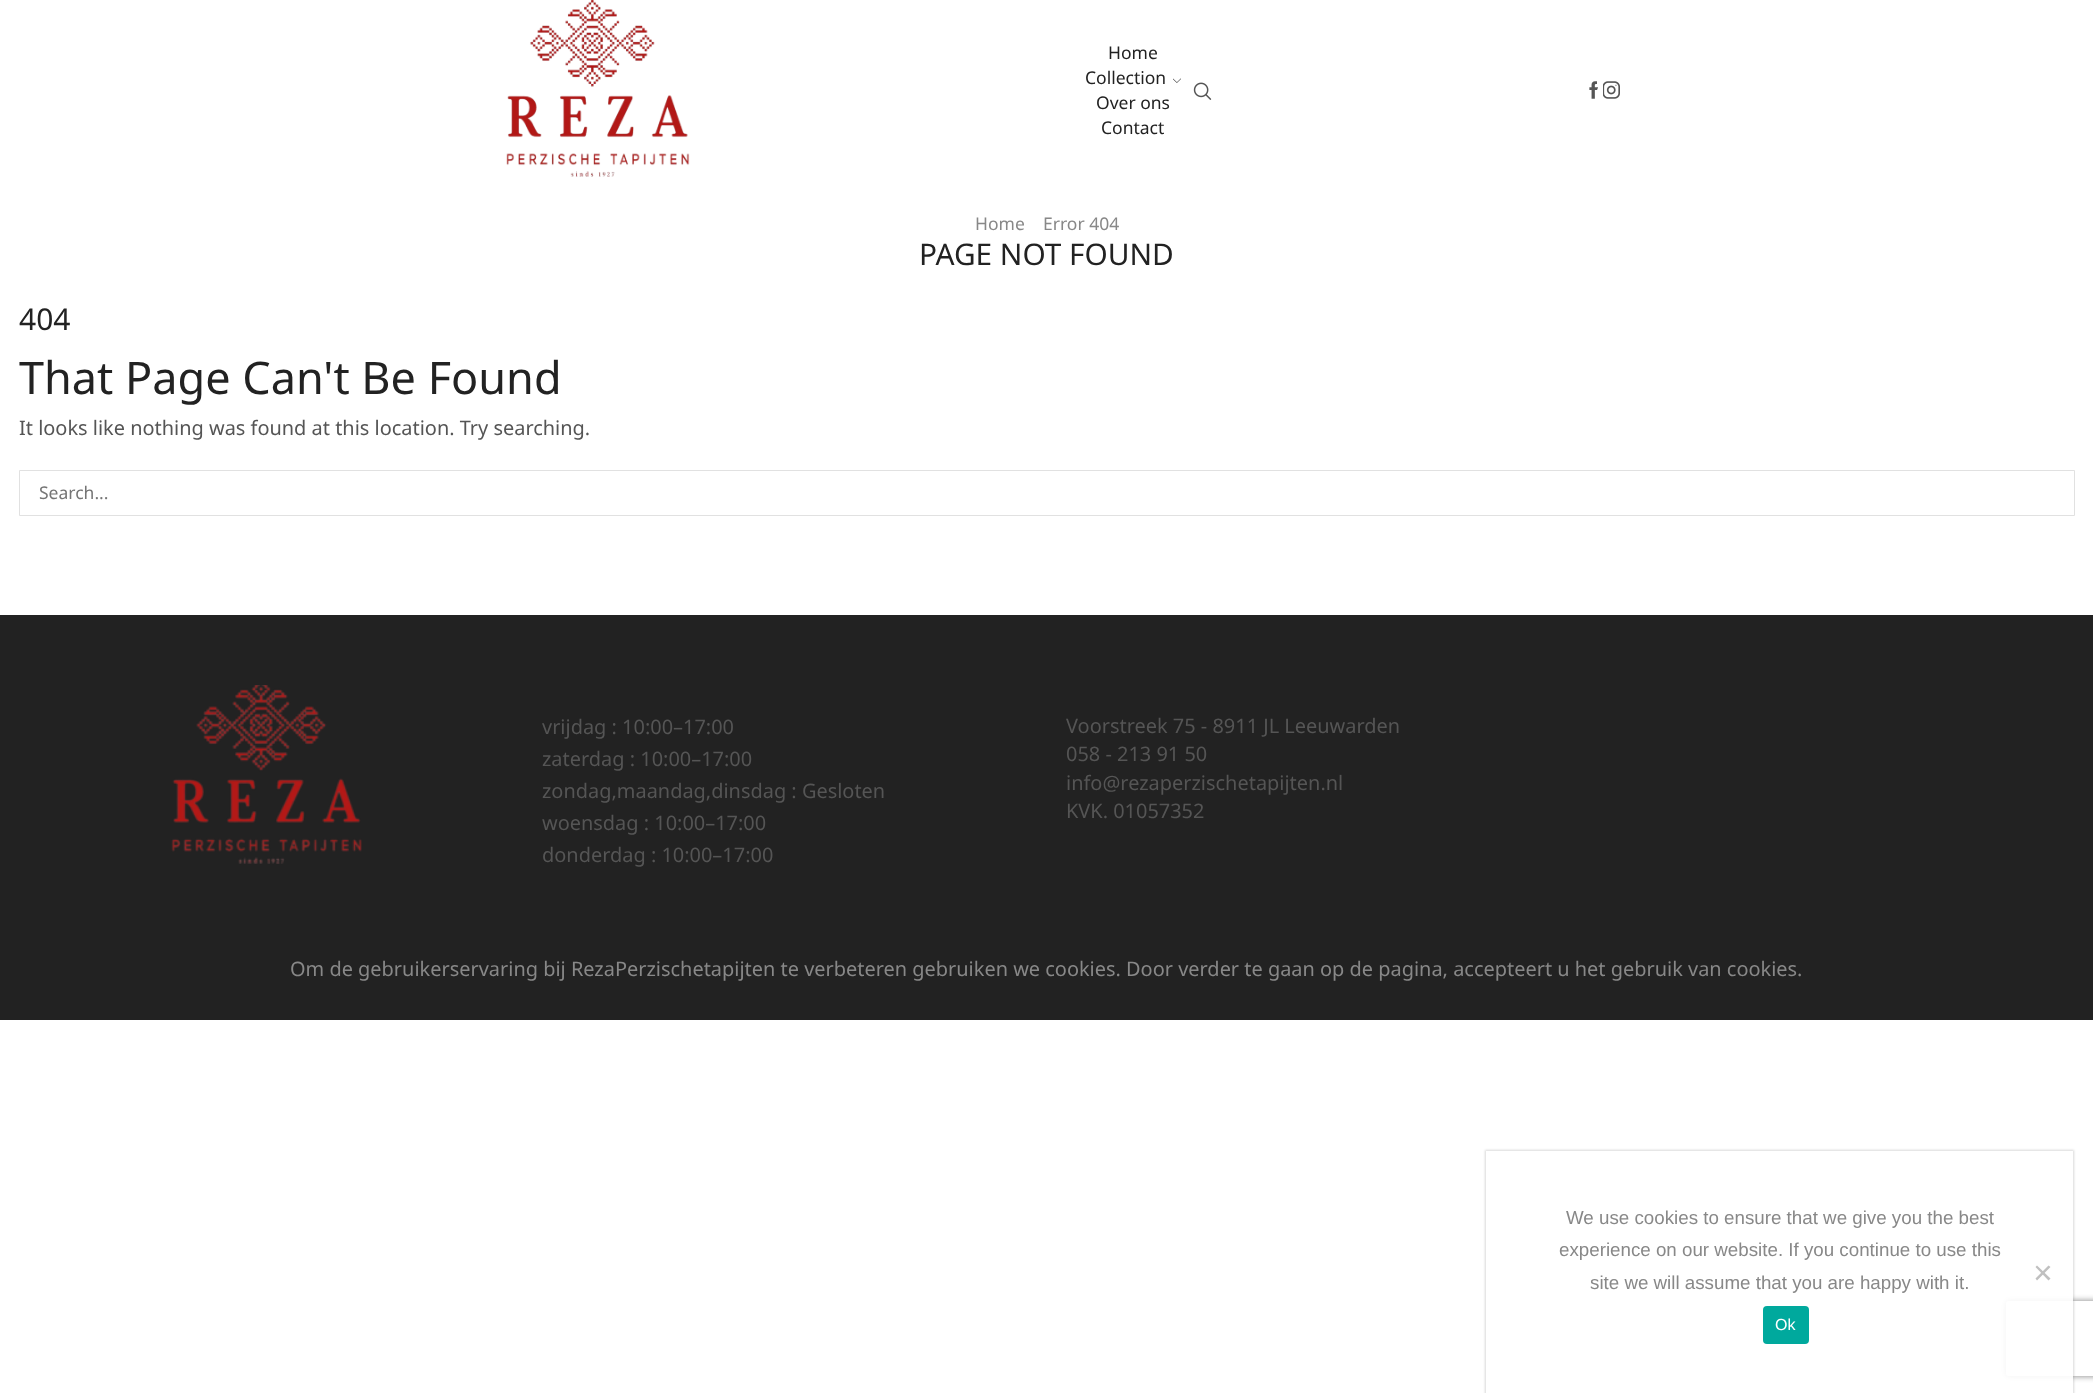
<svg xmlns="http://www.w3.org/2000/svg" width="2093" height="1393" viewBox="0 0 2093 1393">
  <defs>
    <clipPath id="clip1"><path d="M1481 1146H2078V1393H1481ZM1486 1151H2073V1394H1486Z" clip-rule="evenodd"/></clipPath>
    <clipPath id="clip2"><path d="M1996 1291H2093V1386H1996ZM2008.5 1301H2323.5C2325 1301 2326 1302 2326 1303.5V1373.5C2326 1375 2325 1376 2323.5 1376H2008.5C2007 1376 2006 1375 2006 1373.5V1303.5C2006 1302 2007 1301 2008.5 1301Z" clip-rule="evenodd"/></clipPath>
  </defs>
  <rect width="100%" height="100%" fill="#fff"/>
  <image x="506" y="0" width="184" height="177" href="img/1.png"/>
  <image x="1173" y="78" width="8" height="5" href="img/2.png"/>
  <image x="1193" y="82" width="19" height="18" href="img/3.png"/>
  <image x="1589" y="81" width="9" height="18" href="img/4.png"/>
  <image x="1603" y="81" width="17" height="18" href="img/5.png"/>
  <path d="M19.5 470.5h2055v45H19.5z" fill="none" stroke="#e1e1e1"/>
  <path d="M0 615h2093v405H0z" fill="#222"/>
  <image x="171" y="685" width="191" height="179" href="img/6.png"/>
  <g clip-path="url(#clip1)">
    <path d="M1485 1150h589v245H1485z" fill="#00000026" filter="blur(1px)"/>
  </g>
  <g clip-path="url(#clip2)">
    <rect x="2006" y="1301" width="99" height="75" rx="2.5" fill="#808080" filter="blur(3px)"/>
  </g>
  <path d="M1486 1151h587v242H1486z" fill="#ffffffe6"/>
  <path d="M2048.5 1265.5L2050.5 1267L2037 1280.5L2035.5 1278.5Z" fill="#c0c0c0"/>
  <path d="M2035.5 1267L2037 1265.5L2050.5 1278.5L2048.5 1280.5Z" fill="#c0c0c0"/>
  <rect x="1763" y="1306" width="46" height="38" rx="4" fill="#00a99d"/>
  <g font-family="Noto Sans" font-size="17.5" fill="#222">
    <text x="1108" y="59">Home</text>
    <text x="1085" y="84">Collection</text>
    <text x="1096" y="109">Over ons</text>
    <text x="1101" y="134">Contact</text>
  </g>
  <g font-family="Noto Sans" font-size="17.5" fill="#888">
    <text x="975" y="230">Home</text>
    <text x="1043" y="230">Error 404</text>
  </g>
  <text x="919" y="265" font-family="Noto Sans" font-size="29.75" fill="#222">PAGE NOT FOUND</text>
  <text x="19" y="330" font-family="Noto Sans" font-size="30" fill="#222">404</text>
  <text x="19" y="394" font-family="Noto Sans" font-size="45" fill="#222">That Page Can't Be Found</text>
  <text x="19" y="435" font-family="Noto Sans" font-size="19.95" fill="#555">It looks like nothing was found at this location. Try searching.</text>
  <text x="39" y="499" font-family="Noto Sans" font-size="17.5" fill="#757575">Search...</text>
  <g font-family="Noto Sans" font-size="19.95" fill="#555">
    <text x="542" y="734">vrijdag : 10:00–17:00</text>
    <text x="542" y="766">zaterdag : 10:00–17:00</text>
    <text x="542" y="798">zondag,maandag,dinsdag : Gesloten</text>
    <text x="542" y="830">woensdag : 10:00–17:00</text>
    <text x="542" y="862">donderdag : 10:00–17:00</text>
    <text x="1066" y="733">Voorstreek 75 - 8911 JL Leeuwarden</text>
    <text x="1066" y="761">058 - 213 91 50</text>
    <text x="1066" y="790">info@rezaperzischetapijten.nl</text>
    <text x="1066" y="818">KVK. 01057352</text>
  </g>
  <text x="290" y="976" font-family="Noto Sans" font-size="19.95" fill="#888">Om de gebruikerservaring bij RezaPerzischetapijten te verbeteren gebruiken we cookies. Door verder te gaan op de pagina, accepteert u het gebruik van cookies.</text>
  <g font-family="Liberation Sans" font-size="18.75" fill="#888">
    <text x="1566" y="1224">We use cookies to ensure that we give you the best</text>
    <text x="1559" y="1256">experience on our website. If you continue to use this</text>
    <text x="1590" y="1289">site we will assume that you are happy with it.</text>
  </g>
  <text x="1775" y="1330" font-family="Liberation Sans" font-size="16" fill="#fff">Ok</text>
</svg>
